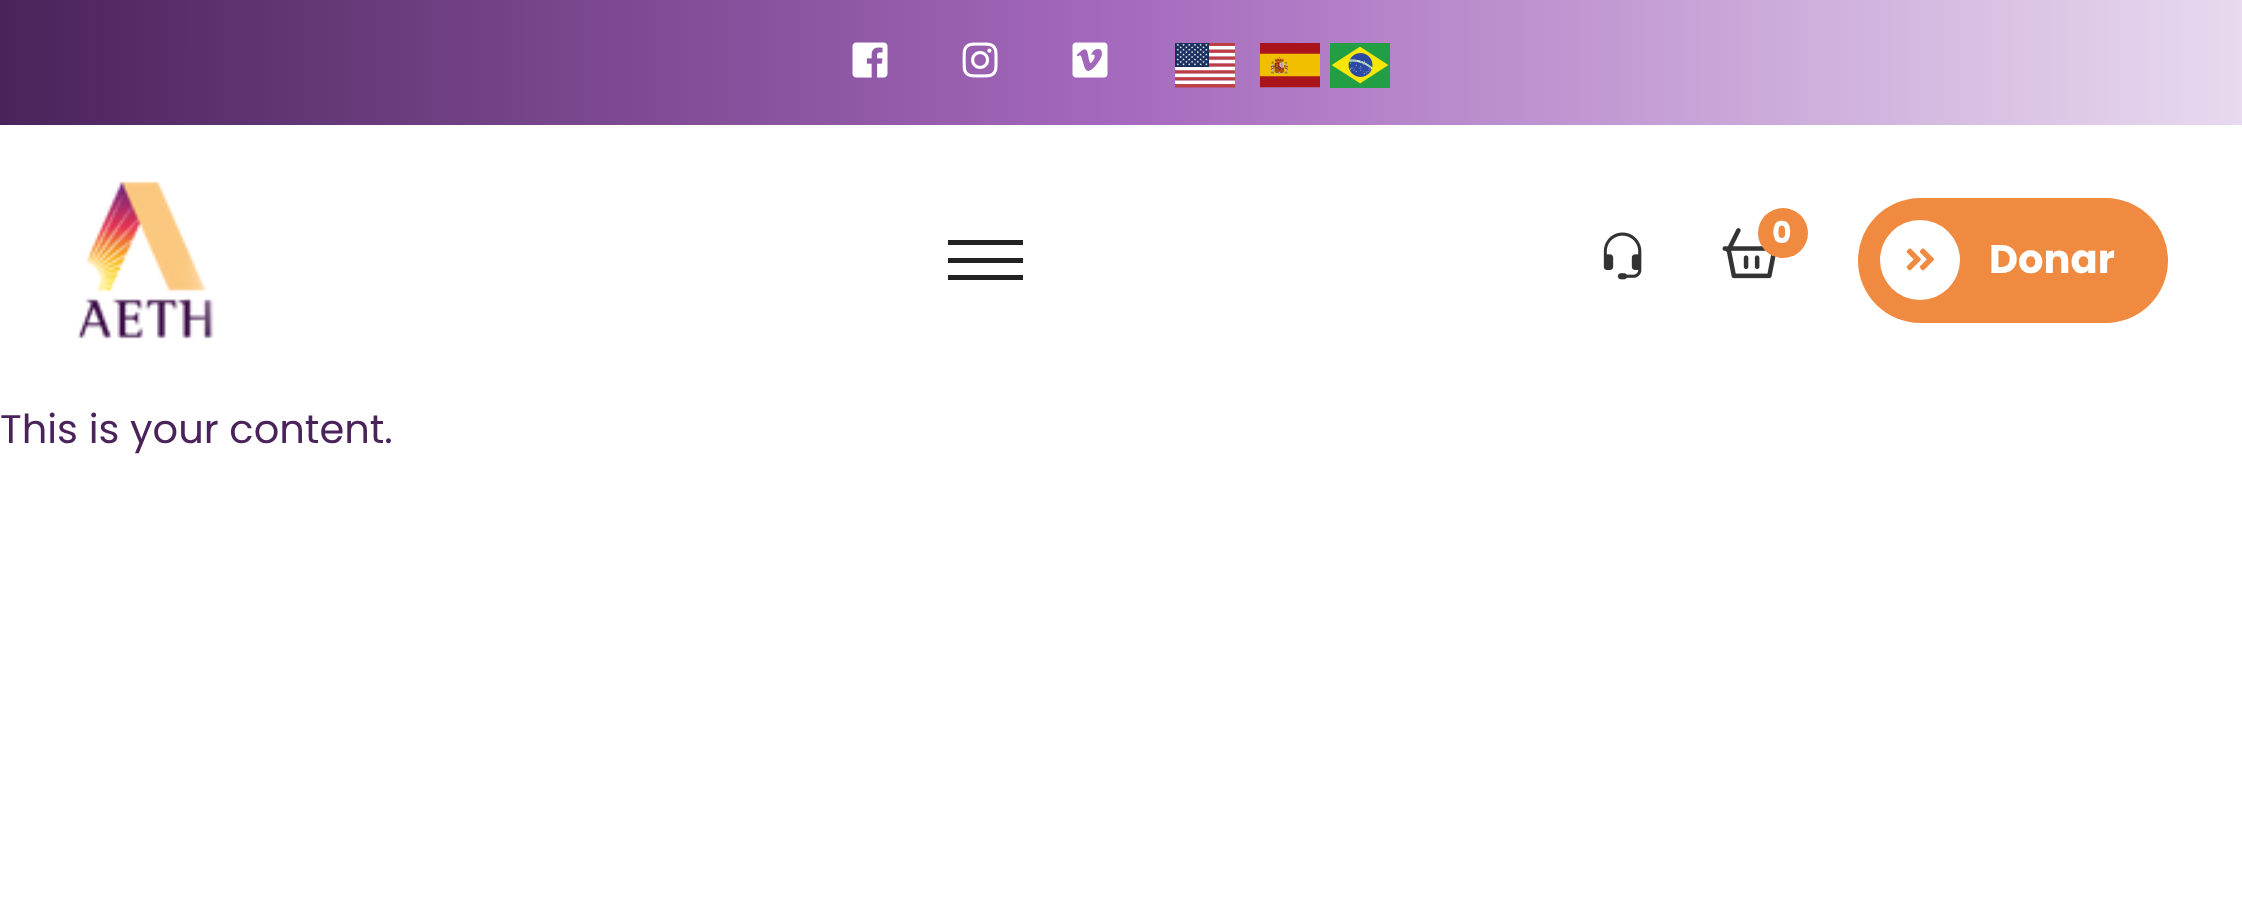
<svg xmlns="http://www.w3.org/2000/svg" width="2242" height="908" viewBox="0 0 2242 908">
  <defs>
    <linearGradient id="g1" gradientUnits="userSpaceOnUse" x1="0" y1="63" x2="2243" y2="62"><stop offset="0" stop-color="#4a235a"/><stop offset="0.5" stop-color="#a569bd"/><stop offset="1" stop-color="#e8daef"/></linearGradient>
  </defs>
  <rect width="100%" height="100%" fill="#fff"/>
  <path d="M0 0h2242v125H0z" fill="url(#g1)"/>
  <image x="852" y="42" width="36" height="36" href="img/1.png"/>
  <image x="962" y="42" width="36" height="36" href="img/2.png"/>
  <image x="1072" y="42" width="36" height="36" href="img/3.png"/>
  <image x="1175" y="43" width="60" height="45" href="img/4.png"/>
  <image x="1260" y="43" width="60" height="45" href="img/5.png"/>
  <image x="1330" y="43" width="60" height="45" href="img/6.png"/>
  <image x="77" y="180" width="137" height="159" href="img/7.png"/>
  <path d="M948 240h75v5H948z" fill="#222"/>
  <path d="M948 258h75v5H948z" fill="#222"/>
  <path d="M948 275h75v5H948z" fill="#222"/>
  <image x="1603" y="232" width="39" height="48" href="img/8.png"/>
  <image x="1722" y="228" width="54" height="51" href="img/9.png"/>
  <circle cx="1783" cy="233" r="25" fill="#f08a41"/>
  <rect x="1858" y="198" width="310" height="125" rx="62.5" fill="#f08a41"/>
  <circle cx="1920" cy="260" r="40" fill="#fff"/>
  <image x="1906" y="248" width="28" height="23" href="img/10.png"/>
  <text x="1772" y="243" font-family="Poppins" font-size="30" font-weight="bold" fill="#fff">0</text>
  <text x="1989" y="273" font-family="Poppins" font-size="40" font-weight="bold" fill="#fff">Donar</text>
  <text x="0" y="443" font-family="Poppins" font-size="40" fill="#4a235a">This is your content.</text>
</svg>
